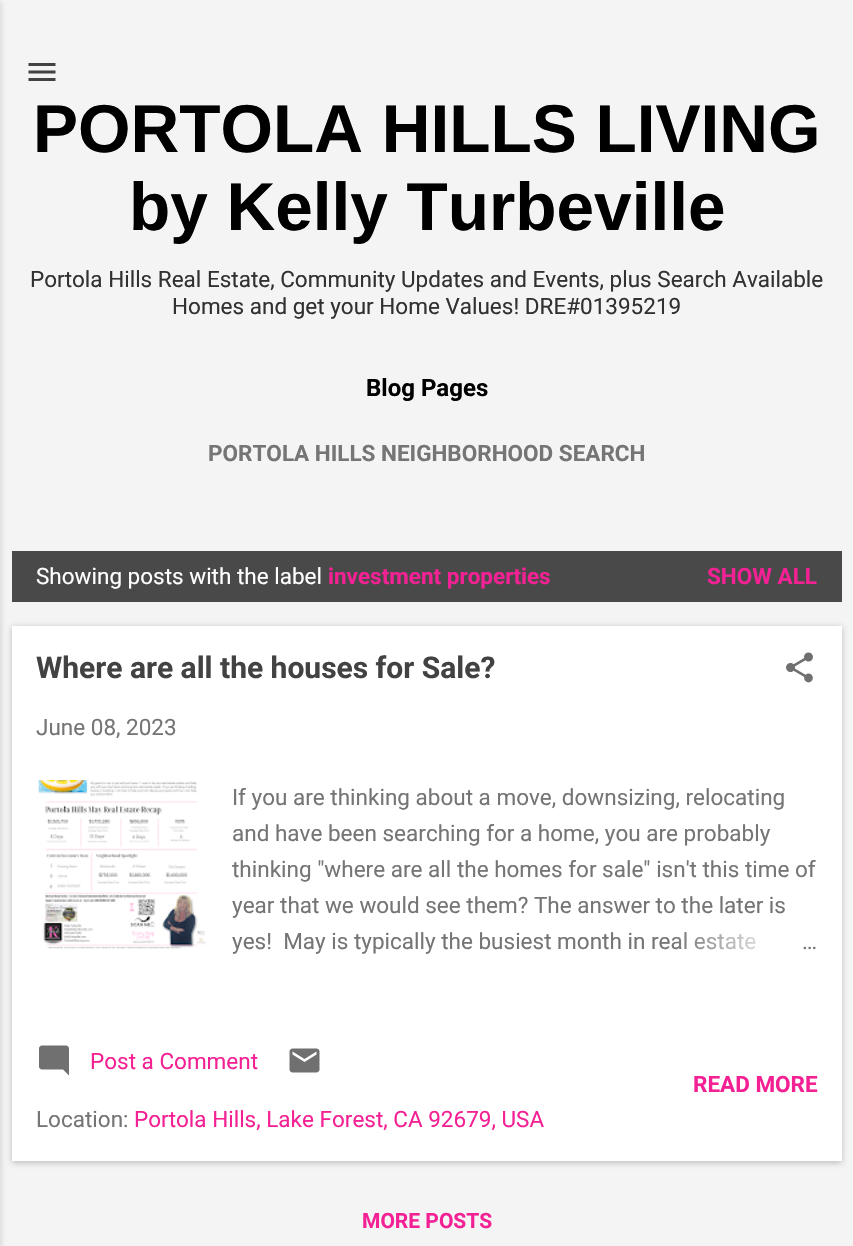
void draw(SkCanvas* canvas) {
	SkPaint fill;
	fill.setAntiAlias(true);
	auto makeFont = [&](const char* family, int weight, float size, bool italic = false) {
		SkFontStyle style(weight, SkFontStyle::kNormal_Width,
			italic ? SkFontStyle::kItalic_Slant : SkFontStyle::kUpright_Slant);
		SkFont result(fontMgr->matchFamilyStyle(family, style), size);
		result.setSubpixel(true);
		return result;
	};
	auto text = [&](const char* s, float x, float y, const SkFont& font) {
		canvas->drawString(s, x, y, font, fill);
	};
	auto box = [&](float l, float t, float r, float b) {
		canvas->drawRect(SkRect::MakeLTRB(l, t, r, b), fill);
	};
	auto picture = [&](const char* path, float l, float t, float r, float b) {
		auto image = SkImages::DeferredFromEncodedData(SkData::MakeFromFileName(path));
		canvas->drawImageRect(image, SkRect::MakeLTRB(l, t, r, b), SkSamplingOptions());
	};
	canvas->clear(0xFFF4F4F4);
	fill.setColor(0x1A000000);
	fill.setMaskFilter(SkMaskFilter::MakeBlur(kNormal_SkBlurStyle, 2));
	canvas->drawRect(SkRect::MakeLTRB(-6, 2, 2, 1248), fill);
	fill.setMaskFilter(nullptr);
	picture("image0.png", 28, 63, 56, 81);
	fill.setColor(0xFF494949);
	box(12, 551, 842, 602);
	fill.setColor(0x4D433C40);
	fill.setMaskFilter(SkMaskFilter::MakeBlur(kNormal_SkBlurStyle, 3));
	canvas->drawRect(SkRect::MakeLTRB(12, 627, 842, 1163), fill);
	fill.setMaskFilter(nullptr);
	fill.setColor(0xFFFFFFFF);
	box(12, 626, 842, 1161);
	picture("image1.png", 786, 652, 813, 683);
	picture("image2.png", 38, 780, 206, 949);
	picture("image3.png", 39, 1045, 69, 1076);
	picture("image4.png", 289, 1048, 320, 1073);
	auto font1 = makeFont("Liberation Sans", 700, 67.5f);
	fill.setColor(0xFF000000);
	text("PORTOLA HILLS LIVING", 33, 152, font1);
	text("by Kelly Turbeville", 129, 230, font1);
	auto font2 = makeFont("Roboto", 400, 22.5f);
	fill.setColor(0xFF313131);
	text("Portola Hills Real Estate, Community Updates and Events, plus Search Available", 30, 287, font2);
	text("Homes and get your Home Values! DRE#01395219", 172, 314, font2);
	auto font3 = makeFont("Roboto", 700, 24);
	fill.setColor(0xFF000000);
	text("Blog Pages", 366, 396, font3);
	auto font4 = makeFont("Roboto", 700, 22.5f);
	fill.setColor(0xFF757575);
	text("PORTOLA HILLS NEIGHBORHOOD SEARCH", 208, 461, font4);
	fill.setColor(0xFFFFFFFF);
	text("Showing posts with the label", 36, 584, font2);
	fill.setColor(0xFFF32194);
	text("investment properties", 328, 584, font4);
	text("SHOW ALL", 707, 584, font4);
	auto font5 = makeFont("Roboto", 700, 30);
	fill.setColor(0xFF424242);
	text("Where are all the houses for Sale?", 36, 678, font5);
	fill.setColor(0xFF757575);
	text("June 08, 2023", 36, 735, font2);
	text("If you are thinking about a move, downsizing, relocating", 232, 805, font2);
	text("and have been searching for a home, you are probably", 232, 841, font2);
	text("thinking \"where are all the homes for sale\" isn't this time of", 232, 877, font2);
	text("year that we would see them? The answer to the later is", 232, 913, font2);
	text("yes!  May is typically the busiest month in real estate", 232, 949, font2);
	{
		const SkColor colors[] = {0xFFFFFFFF, 0xFFFFFFFF, 0x00FFFFFF};
		const float stops[] = {0, 0.2f, 1};
		const SkPoint ends[] = {{818, 942}, {674, 942}};
		fill.setShader(SkGradientShader::MakeLinear(ends, colors, stops, 3, SkTileMode::kClamp));
		fill.setAlpha(255);
	}
	box(676, 932, 756, 950);
	fill.setShader(nullptr);
	fill.setColor(0xFF757575);
	text("…", 802, 949, font2);
	fill.setColor(0xFFF32194);
	text("Post a Comment", 90, 1069, font2);
	fill.setColor(0xFF757575);
	text("Location:", 36, 1127, font2);
	fill.setColor(0xFFF32194);
	text("Portola Hills, Lake Forest, CA 92679, USA", 134, 1127, font2);
	text("READ MORE", 693, 1092, font4);
	auto font6 = makeFont("Roboto", 700, 21);
	text("MORE POSTS", 362, 1228, font6);
}
